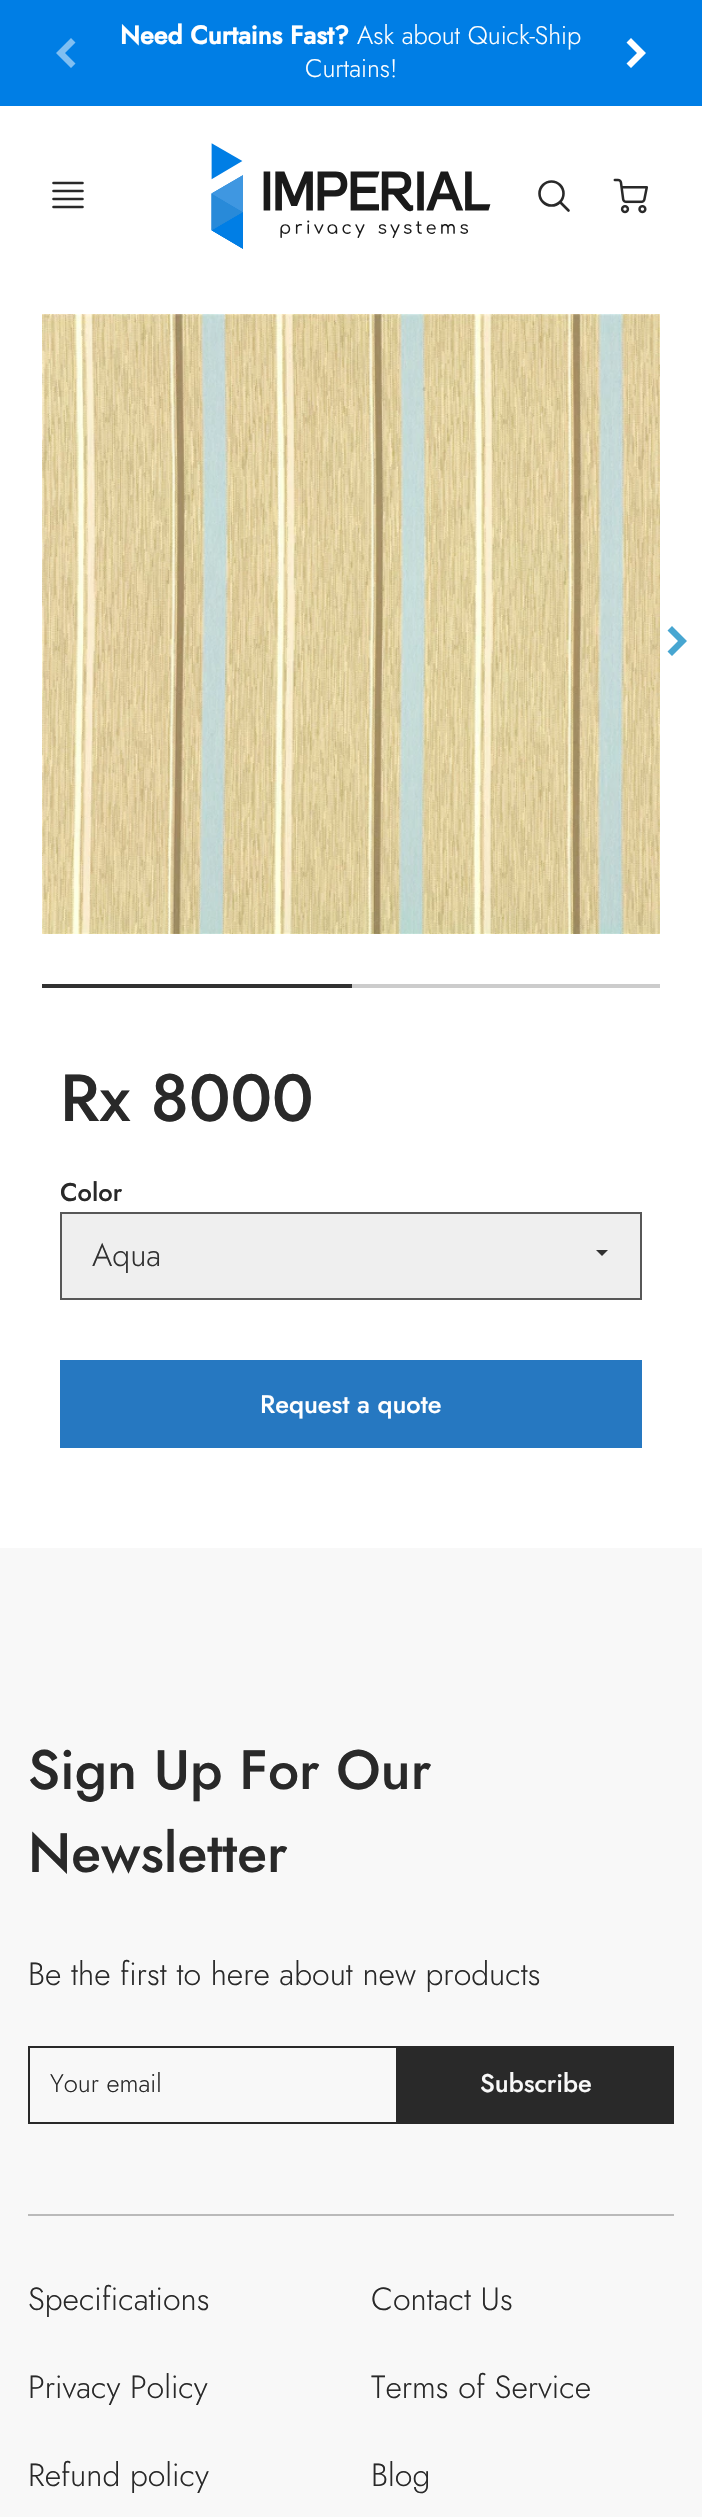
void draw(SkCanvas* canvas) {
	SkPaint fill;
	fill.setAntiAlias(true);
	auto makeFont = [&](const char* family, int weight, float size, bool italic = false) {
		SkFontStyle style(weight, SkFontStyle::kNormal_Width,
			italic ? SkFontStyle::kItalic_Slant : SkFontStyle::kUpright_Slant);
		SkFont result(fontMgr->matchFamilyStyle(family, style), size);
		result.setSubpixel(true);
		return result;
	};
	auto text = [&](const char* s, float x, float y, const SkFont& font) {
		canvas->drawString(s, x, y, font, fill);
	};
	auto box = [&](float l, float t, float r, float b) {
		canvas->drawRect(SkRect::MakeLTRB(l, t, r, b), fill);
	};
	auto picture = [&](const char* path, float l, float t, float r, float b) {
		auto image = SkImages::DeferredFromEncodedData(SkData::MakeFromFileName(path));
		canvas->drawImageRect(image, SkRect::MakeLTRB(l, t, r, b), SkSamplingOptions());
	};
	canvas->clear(0xFFF8F8F8);
	fill.setColor(0xFF007EE5);
	box(0, 0, 702, 106);
	fill.setColor(0xFF80BFF2);
	canvas->drawPath(SkPathBuilder().moveTo(56, 53).lineTo(71, 68).lineTo(75.5f, 63.5f).lineTo(65, 53).lineTo(75.5f, 42.5f).lineTo(71, 38).close().detach(), fill);
	fill.setColor(0xFFFFFFFF);
	canvas->drawPath(SkPathBuilder().moveTo(646, 53).lineTo(631, 38).lineTo(626.5f, 42.5f).lineTo(637, 53).lineTo(626.5f, 63.5f).lineTo(631, 68).close().detach(), fill);
	box(0, 106, 702, 1548);
	fill.setStyle(SkPaint::kStroke_Style);
	fill.setStrokeWidth(2.6f);
	fill.setStrokeCap(SkPaint::kRound_Cap);
	fill.setStrokeJoin(SkPaint::kRound_Join);
	fill.setColor(0xFF292929);
	canvas->drawPath(SkPathBuilder().moveTo(82.5f, 199).lineTo(53.5f, 199).moveTo(82.5f, 207).lineTo(53.5f, 207).moveTo(82.5f, 183).lineTo(53.5f, 183).moveTo(82.5f, 191).lineTo(53.5f, 191).detach(), fill);
	picture("image0.png", 211, 143, 491, 249);
	fill.setStrokeCap(SkPaint::kButt_Cap);
	fill.setStrokeJoin(SkPaint::kMiter_Join);
	canvas->drawCircle(551.5f, 193.5f, 12, fill);
	fill.setStrokeCap(SkPaint::kRound_Cap);
	fill.setStrokeJoin(SkPaint::kRound_Join);
	canvas->drawPath(SkPathBuilder().moveTo(568.5f, 210.5f).lineTo(560.5f, 202.5f).detach(), fill);
	picture("image1.png", 613, 178, 648, 214);
	picture("image2.png", 42, 314, 660, 934);
	fill.setStyle(SkPaint::kFill_Style);
	fill.setColor(0xFF47A6D1);
	canvas->drawPath(SkPathBuilder().moveTo(687, 641).lineTo(672, 626).lineTo(667.5f, 630.5f).lineTo(678, 641).lineTo(667.5f, 651.5f).lineTo(672, 656).close().detach(), fill);
	fill.setColor(0xFF313131);
	box(42, 984, 352, 988);
	fill.setColor(0xFFCCCCCC);
	box(352, 984, 660, 988);
	fill.setColor(0xFFEFEFEF);
	box(62, 1214, 640, 1298);
	fill.setColor(0xFF313131);
	canvas->drawPath(SkPathBuilder().moveTo(596, 1250).lineTo(608, 1250).lineTo(602, 1256).close().detach(), fill);
	fill.setStyle(SkPaint::kStroke_Style);
	fill.setStrokeWidth(2);
	fill.setStrokeCap(SkPaint::kButt_Cap);
	fill.setStrokeJoin(SkPaint::kMiter_Join);
	fill.setColor(0xFF575757);
	canvas->drawRect(SkRect::MakeLTRB(61, 1213, 641, 1299), fill);
	fill.setStyle(SkPaint::kFill_Style);
	fill.setColor(0xFF2678C1);
	box(60, 1360, 642, 1448);
	fill.setStyle(SkPaint::kStroke_Style);
	fill.setColor(0xFF292929);
	canvas->drawRect(SkRect::MakeLTRB(29, 2047, 397, 2123), fill);
	fill.setStyle(SkPaint::kFill_Style);
	box(398, 2046, 674, 2124);
	fill.setColor(0xFFBABABA);
	box(28, 2214, 674, 2216);
	auto font1 = makeFont("Jost", 700, 25.5f);
	fill.setColor(0xFFFFFFFF);
	text("Need Curtains Fast?", 120, 44, font1);
	auto font2 = makeFont("Jost", 300, 25.5f);
	text("Ask about Quick-Ship", 357, 44, font2);
	text("Curtains!", 305, 77, font2);
	auto font3 = makeFont("Jost", 500, 66.5f);
	fill.setColor(0xFF292929);
	text("Rx 8000", 60, 1121, font3);
	auto font4 = makeFont("Jost", 500, 25.5f);
	text("Color", 60, 1201, font4);
	auto font5 = makeFont("Jost", 300, 32);
	fill.setColor(0xFF313131);
	text("Aqua", 92, 1266, font5);
	fill.setColor(0xFFFFFFFF);
	text("Request a quote", 260, 1413, font4);
	auto font6 = makeFont("Jost", 500, 55.25f);
	fill.setColor(0xFF292929);
	text("Sign Up For Our", 28, 1789, font6);
	text("Newsletter", 28, 1872, font6);
	text("Be the first to here about new products", 28, 1985, font5);
	text("Your email", 50, 2092, font2);
	fill.setColor(0xFFF8F8F8);
	text("Subscribe", 480, 2092, font4);
	fill.setColor(0xFF292929);
	text("Specifications", 28, 2310, font5);
	text("Contact Us", 371, 2310, font5);
	text("Privacy Policy", 28, 2398, font5);
	text("Terms of Service", 371, 2398, font5);
	text("Refund policy", 28, 2486, font5);
	text("Blog", 371, 2486, font5);
}
